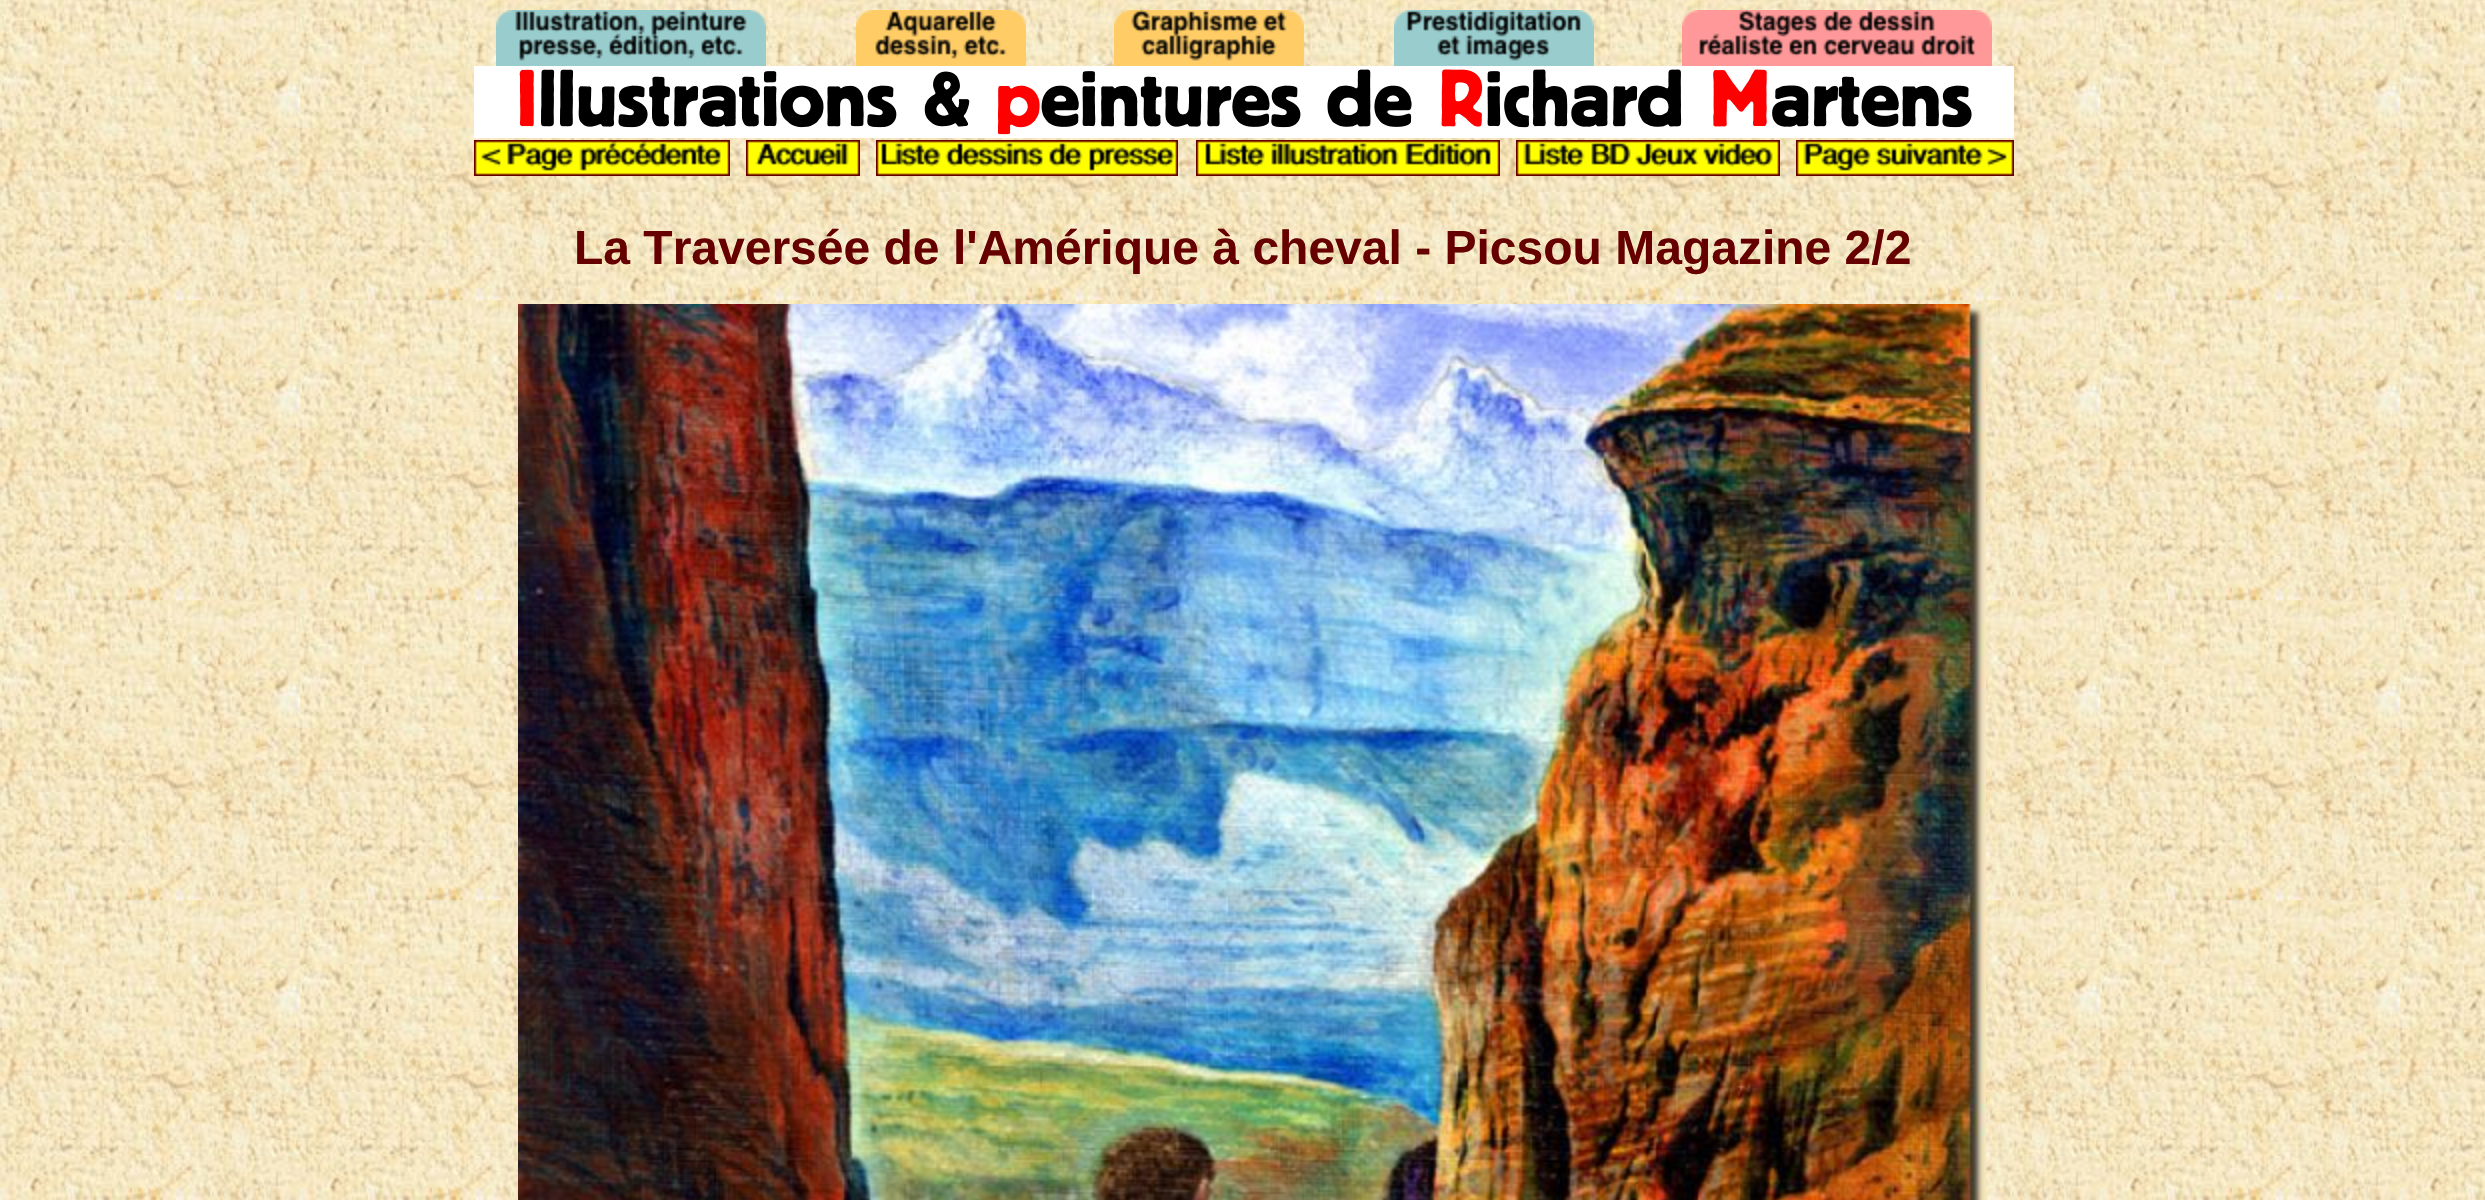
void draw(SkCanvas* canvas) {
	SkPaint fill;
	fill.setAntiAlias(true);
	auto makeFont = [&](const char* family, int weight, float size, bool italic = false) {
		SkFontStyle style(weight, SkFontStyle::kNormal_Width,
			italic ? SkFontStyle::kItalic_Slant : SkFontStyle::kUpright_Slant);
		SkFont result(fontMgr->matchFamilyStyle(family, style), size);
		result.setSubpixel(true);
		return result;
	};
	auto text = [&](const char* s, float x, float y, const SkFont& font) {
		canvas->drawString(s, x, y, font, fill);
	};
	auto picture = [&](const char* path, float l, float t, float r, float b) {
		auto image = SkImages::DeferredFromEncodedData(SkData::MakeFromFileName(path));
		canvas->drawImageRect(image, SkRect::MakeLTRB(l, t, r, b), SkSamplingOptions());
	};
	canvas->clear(0xFFFFFFFF);
	picture("image0.png", 0, 0, 2485, 1200);
	picture("image1.png", 496, 10, 766, 66);
	picture("image2.png", 856, 10, 1026, 66);
	picture("image3.png", 1114, 10, 1304, 66);
	picture("image4.png", 1394, 10, 1594, 66);
	picture("image5.png", 1682, 10, 1992, 66);
	picture("image6.png", 474, 66, 2014, 138);
	picture("image7.png", 474, 140, 730, 176);
	picture("image8.png", 746, 140, 860, 176);
	picture("image9.png", 876, 140, 1178, 176);
	picture("image10.png", 1196, 140, 1500, 176);
	picture("image11.png", 1516, 140, 1780, 176);
	picture("image12.png", 1796, 140, 2014, 176);
	picture("image13.png", 518, 304, 1986, 1200);
	auto font1 = makeFont("Liberation Sans", 700, 48);
	fill.setColor(0xFF660000);
	text("La Traversée de l'Amérique à cheval - Picsou Magazine 2/2", 574, 264, font1);
}
